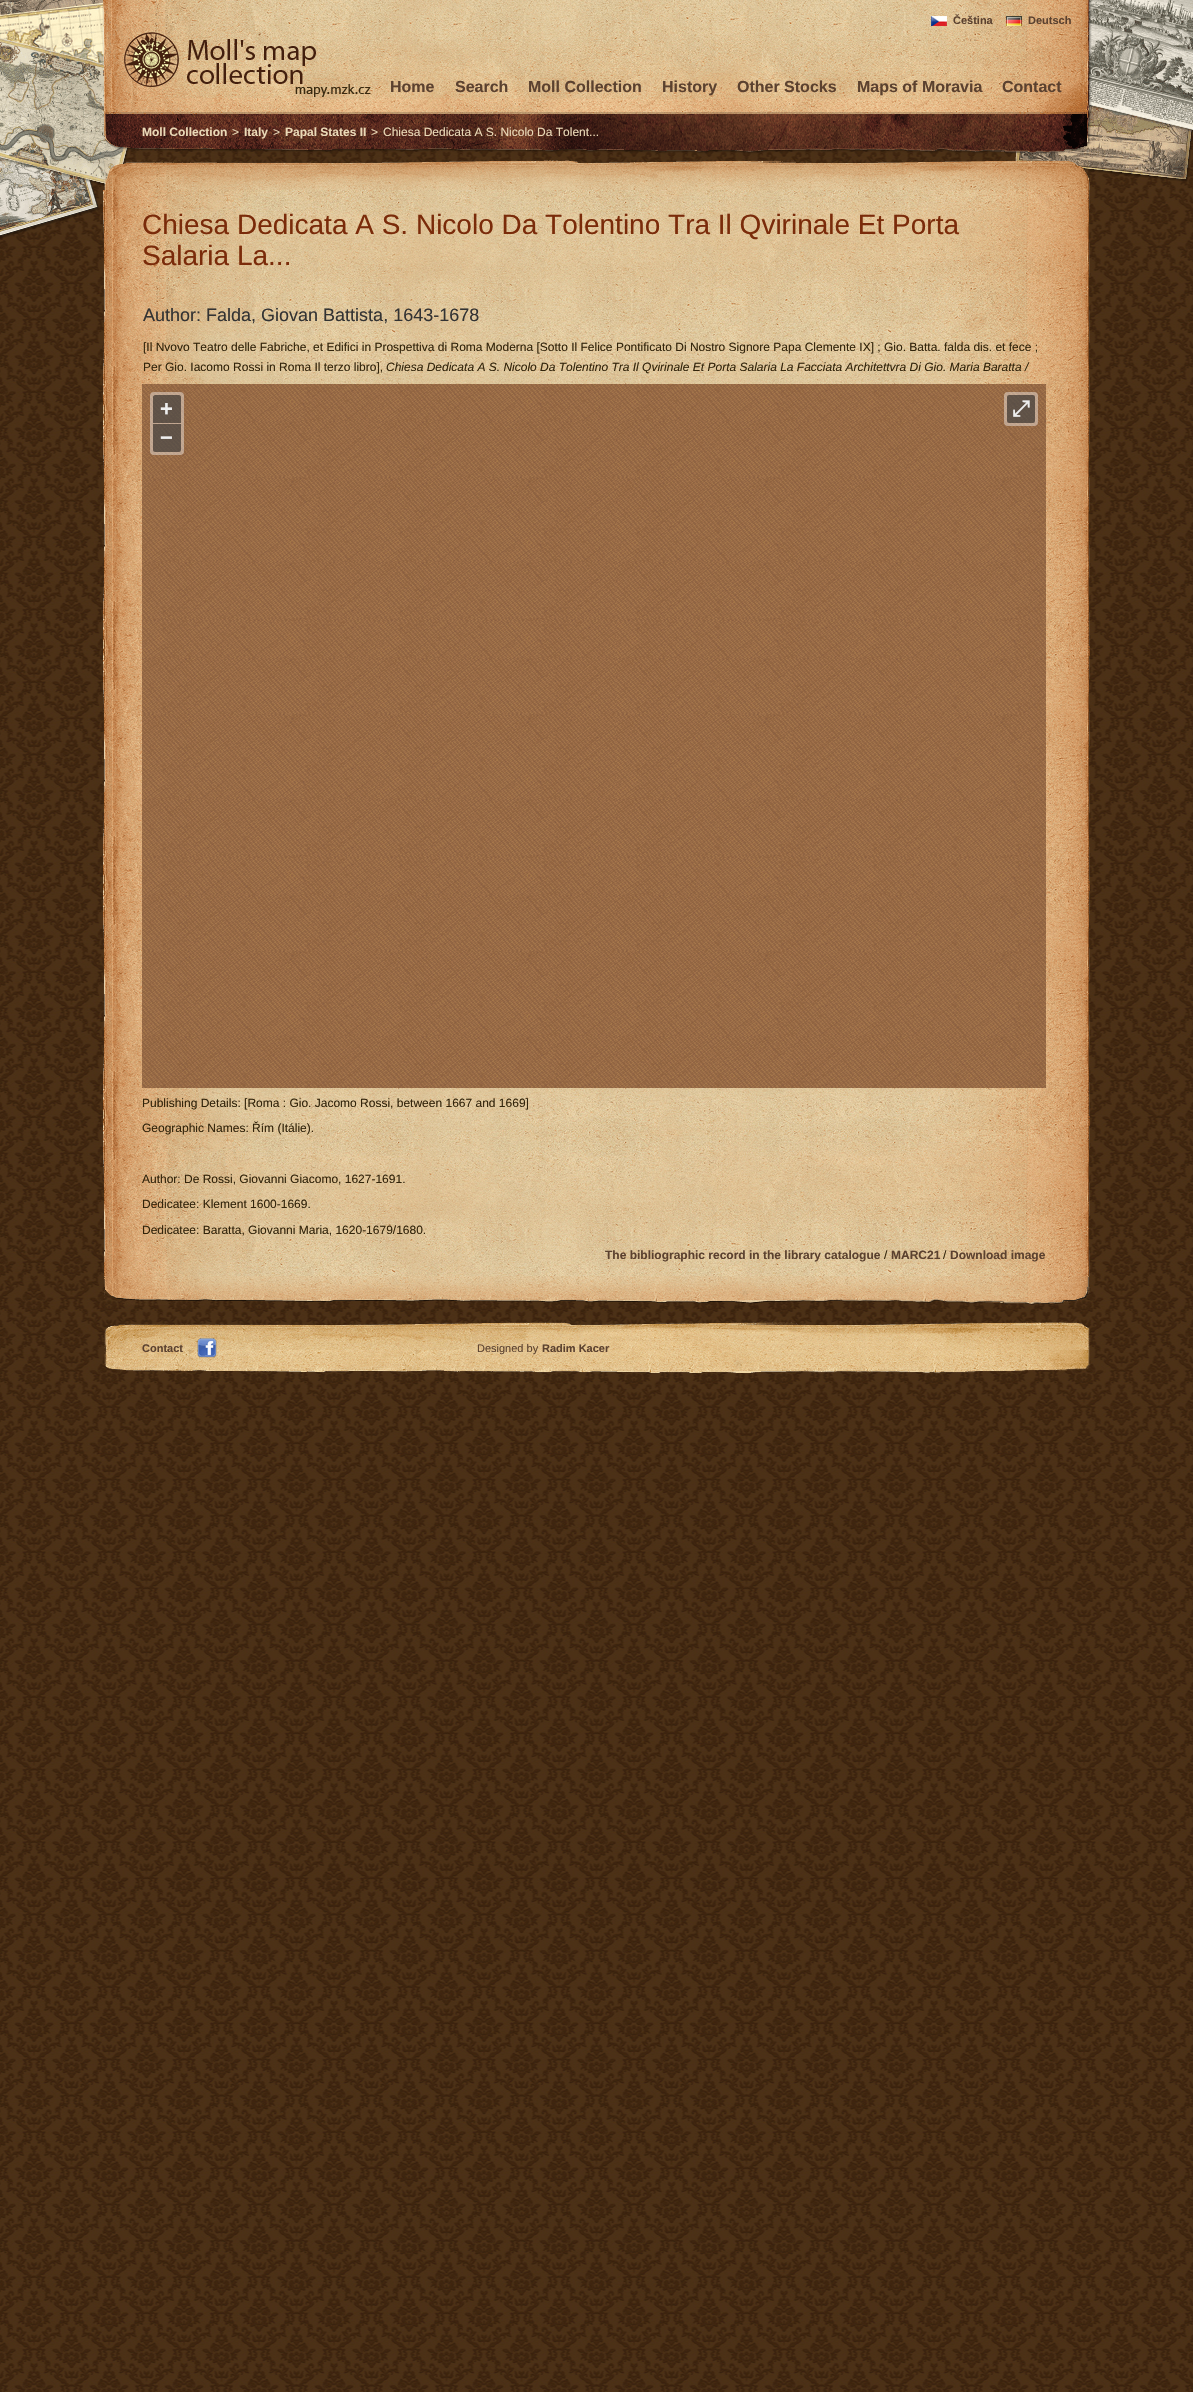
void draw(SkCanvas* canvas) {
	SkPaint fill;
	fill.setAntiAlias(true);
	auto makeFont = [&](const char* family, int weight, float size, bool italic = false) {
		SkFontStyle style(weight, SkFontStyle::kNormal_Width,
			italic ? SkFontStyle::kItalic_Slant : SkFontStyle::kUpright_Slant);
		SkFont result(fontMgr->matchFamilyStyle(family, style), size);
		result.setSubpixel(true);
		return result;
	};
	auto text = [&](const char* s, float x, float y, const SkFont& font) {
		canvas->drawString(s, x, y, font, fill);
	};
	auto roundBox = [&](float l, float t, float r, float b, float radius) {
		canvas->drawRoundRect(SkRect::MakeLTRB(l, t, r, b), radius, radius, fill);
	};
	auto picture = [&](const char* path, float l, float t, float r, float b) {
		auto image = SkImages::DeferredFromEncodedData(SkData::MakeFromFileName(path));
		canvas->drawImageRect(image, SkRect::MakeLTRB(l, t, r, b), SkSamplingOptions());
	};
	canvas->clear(0xFFFFFFFF);
	picture("image0.png", 0, 0, 1193, 2392);
	picture("image1.png", 0, 0, 1193, 239);
	picture("image2.png", 102, 0, 1092, 155);
	picture("image3.png", 931, 16, 947, 26);
	picture("image4.png", 1006, 16, 1022, 26);
	picture("image5.png", 124, 32, 371, 97);
	picture("image6.png", 104, 160, 1090, 190);
	picture("image7.png", 103, 190, 1090, 1276);
	picture("image8.png", 142, 384, 1046, 1088);
	fill.setColor(0x66FFFFFF);
	roundBox(150, 392, 184, 455, 4);
	fill.setColor(0x80000000);
	canvas->drawPath(SkPathBuilder().moveTo(155, 395).lineTo(179, 395).cubicTo(180, 395, 181, 396, 181, 397).lineTo(181, 423).lineTo(153, 423).lineTo(153, 397).cubicTo(153, 396, 154, 395, 155, 395).close().detach(), fill);
	canvas->drawPath(SkPathBuilder().moveTo(153, 424).lineTo(181, 424).lineTo(181, 450).cubicTo(181, 451, 180, 452, 179, 452).lineTo(155, 452).cubicTo(154, 452, 153, 451, 153, 450).close().detach(), fill);
	fill.setColor(0x66FFFFFF);
	roundBox(1004, 392, 1038, 426, 4);
	fill.setColor(0x80000000);
	roundBox(1007, 395, 1035, 423, 2);
	picture("image9.png", 104, 1276, 1090, 1305);
	picture("image10.png", 104, 1322, 1090, 1373);
	picture("image11.png", 197, 1338, 217, 1358);
	auto font1 = makeFont("Liberation Sans", 700, 11);
	fill.setColor(0xFF5B412F);
	text("Čeština", 953, 24, font1);
	text("Deutsch", 1028, 24, font1);
	auto font2 = makeFont("Liberation Sans", 700, 16);
	text("Home", 390, 92, font2);
	text("Search", 455, 92, font2);
	text("Moll Collection", 528, 92, font2);
	text("History", 662, 92, font2);
	text("Other Stocks", 737, 92, font2);
	text("Maps of Moravia", 857, 92, font2);
	text("Contact", 1002, 92, font2);
	auto font3 = makeFont("Liberation Sans", 700, 12);
	fill.setColor(0xFFEAD9B7);
	text("Moll Collection", 142, 136, font3);
	auto font4 = makeFont("Liberation Sans", 400, 12);
	text(">", 232, 136, font4);
	text("Italy", 244, 136, font3);
	text(">", 273, 136, font4);
	text("Papal States II", 285, 136, font3);
	text(">", 371, 136, font4);
	text("Chiesa Dedicata A S. Nicolo Da Tolent...", 383, 136, font4);
	auto font5 = makeFont("Liberation Sans", 400, 28);
	fill.setColor(0xFF7A2B0A);
	text("Chiesa Dedicata A S. Nicolo Da Tolentino Tra Il Qvirinale Et Porta", 142, 234, font5);
	text("Salaria La...", 142, 265, font5);
	auto font6 = makeFont("Liberation Sans", 400, 18);
	fill.setColor(0xFF333333);
	text("Author: Falda, Giovan Battista, 1643-1678", 143, 321, font6);
	fill.setColor(0xFF32240B);
	text("[Il Nvovo Teatro delle Fabriche, et Edifici in Prospettiva di Roma Moderna [Sotto Il Felice Pontificato Di Nostro Signore Papa Clemente IX] ; Gio. Batta. falda dis. et fece ;", 143, 351, font4);
	text("Per Gio. Iacomo Rossi in Roma Il terzo libro],", 143, 371, font4);
	auto font7 = makeFont("Liberation Sans", 400, 12, true);
	text("Chiesa Dedicata A S. Nicolo Da Tolentino Tra Il Qvirinale Et Porta Salaria La Facciata Architettvra Di Gio. Maria Baratta /", 386, 371, font7);
	auto font8 = makeFont("Liberation Sans", 700, 22);
	fill.setColor(0xFFEEEEEE);
	text("+", 160, 416, font8);
	text("−", 160, 445, font8);
	auto font9 = makeFont("FreeSerif", 700, 22);
	text("⤢", 1012, 416, font9);
	fill.setColor(0xFF32240B);
	text("Publishing Details: [Roma : Gio. Jacomo Rossi, between 1667 and 1669]", 142, 1107, font4);
	text("Geographic Names: Řím (Itálie).", 142, 1132, font4);
	text("Author: De Rossi, Giovanni Giacomo, 1627-1691.", 142, 1183, font4);
	text("Dedicatee: Klement 1600-1669.", 142, 1208, font4);
	text("Dedicatee: Baratta, Giovanni Maria, 1620-1679/1680.", 142, 1234, font4);
	fill.setColor(0xFF5B412F);
	text("The bibliographic record in the library catalogue", 605, 1259, font3);
	fill.setColor(0xFF32240B);
	text("/", 884, 1259, font4);
	fill.setColor(0xFF5B412F);
	text("MARC21", 891, 1259, font3);
	fill.setColor(0xFF32240B);
	text("/", 943, 1259, font4);
	fill.setColor(0xFF5B412F);
	text("Download image", 950, 1259, font3);
	text("Contact", 142, 1352, font1);
	auto font10 = makeFont("Liberation Sans", 400, 11);
	text("Designed by", 477, 1352, font10);
	text("Radim Kacer", 542, 1352, font1);
}
